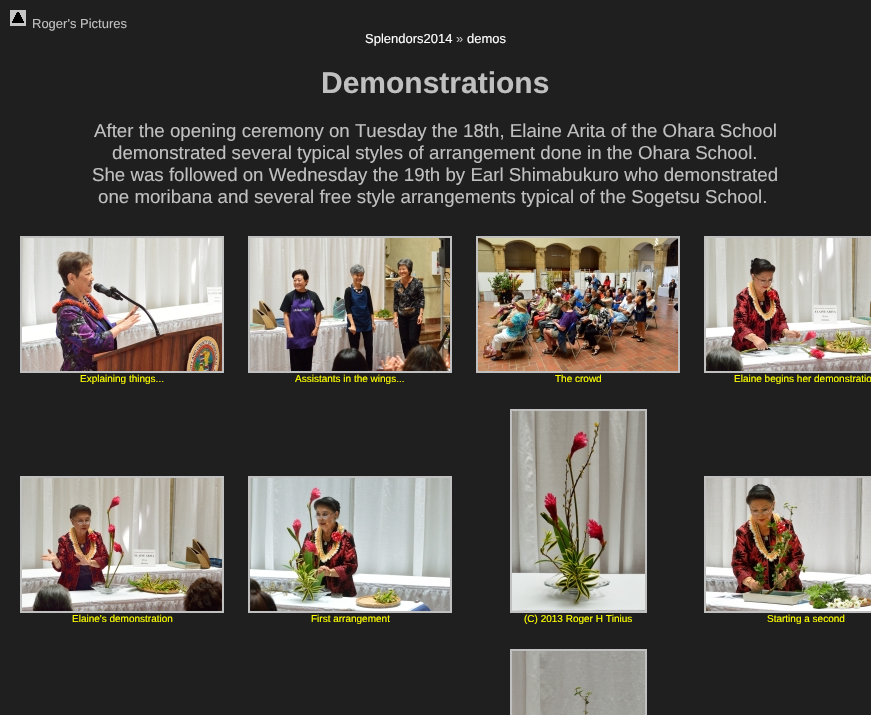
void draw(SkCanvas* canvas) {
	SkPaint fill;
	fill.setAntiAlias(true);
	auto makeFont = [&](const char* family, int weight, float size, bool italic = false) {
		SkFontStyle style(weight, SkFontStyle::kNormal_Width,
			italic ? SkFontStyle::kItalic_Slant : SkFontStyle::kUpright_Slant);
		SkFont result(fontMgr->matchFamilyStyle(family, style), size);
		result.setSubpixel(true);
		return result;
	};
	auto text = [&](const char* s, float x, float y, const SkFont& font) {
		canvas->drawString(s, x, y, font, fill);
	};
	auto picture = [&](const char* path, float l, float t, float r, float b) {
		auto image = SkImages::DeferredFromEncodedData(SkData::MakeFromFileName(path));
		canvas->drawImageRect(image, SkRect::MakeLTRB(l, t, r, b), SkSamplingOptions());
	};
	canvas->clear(0xFF1F1F1F);
	picture("image0.png", 10, 10, 26, 26);
	fill.setStyle(SkPaint::kStroke_Style);
	fill.setStrokeWidth(2);
	fill.setColor(0xFFC0C0C0);
	canvas->drawRect(SkRect::MakeLTRB(21, 237, 223, 372), fill);
	picture("image1.png", 22, 238, 222, 371);
	canvas->drawRect(SkRect::MakeLTRB(249, 237, 451, 372), fill);
	picture("image2.png", 250, 238, 450, 371);
	canvas->drawRect(SkRect::MakeLTRB(477, 237, 679, 372), fill);
	picture("image3.png", 478, 238, 678, 371);
	canvas->drawRect(SkRect::MakeLTRB(705, 237, 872, 372), fill);
	picture("image4.png", 706, 238, 871, 371);
	canvas->drawRect(SkRect::MakeLTRB(21, 477, 223, 612), fill);
	picture("image5.png", 22, 478, 222, 611);
	canvas->drawRect(SkRect::MakeLTRB(249, 477, 451, 612), fill);
	picture("image6.png", 250, 478, 450, 611);
	canvas->drawRect(SkRect::MakeLTRB(511, 410, 646, 612), fill);
	picture("image7.png", 512, 411, 645, 611);
	canvas->drawRect(SkRect::MakeLTRB(705, 477, 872, 612), fill);
	picture("image8.png", 706, 478, 871, 611);
	canvas->drawRect(SkRect::MakeLTRB(511, 650, 646, 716), fill);
	picture("image9.png", 512, 651, 645, 715);
	auto font1 = makeFont("Liberation Sans", 400, 13);
	fill.setStyle(SkPaint::kFill_Style);
	text("Roger's Pictures", 32, 28, font1);
	fill.setColor(0xFFFFFFFF);
	text("Splendors2014", 365, 43, font1);
	fill.setColor(0xFFC0C0C0);
	text("»", 456, 43, font1);
	fill.setColor(0xFFFFFFFF);
	text("demos", 467, 43, font1);
	auto font2 = makeFont("Liberation Sans", 700, 30);
	fill.setColor(0xFFC0C0C0);
	text("Demonstrations", 321, 93, font2);
	auto font3 = makeFont("Liberation Sans", 400, 18.7f);
	text("After the opening ceremony on Tuesday the 18th, Elaine Arita of the Ohara School", 94, 137, font3);
	text("demonstrated several typical styles of arrangement done in the Ohara School.", 112, 159, font3);
	text("She was followed on Wednesday the 19th by Earl Shimabukuro who demonstrated", 92, 181, font3);
	text("one moribana and several free style arrangements typical of the Sogetsu School.", 98, 203, font3);
	auto font4 = makeFont("Liberation Sans", 400, 10);
	fill.setColor(0xFFFFFF00);
	text("Explaining things...", 80, 382, font4);
	text("Assistants in the wings...", 295, 382, font4);
	text("The crowd", 555, 382, font4);
	text("Elaine begins her demonstratio", 734, 382, font4);
	text("Elaine's demonstration", 72, 622, font4);
	text("First arrangement", 311, 622, font4);
	text("(C) 2013 Roger H Tinius", 524, 622, font4);
	text("Starting a second", 767, 622, font4);
}
